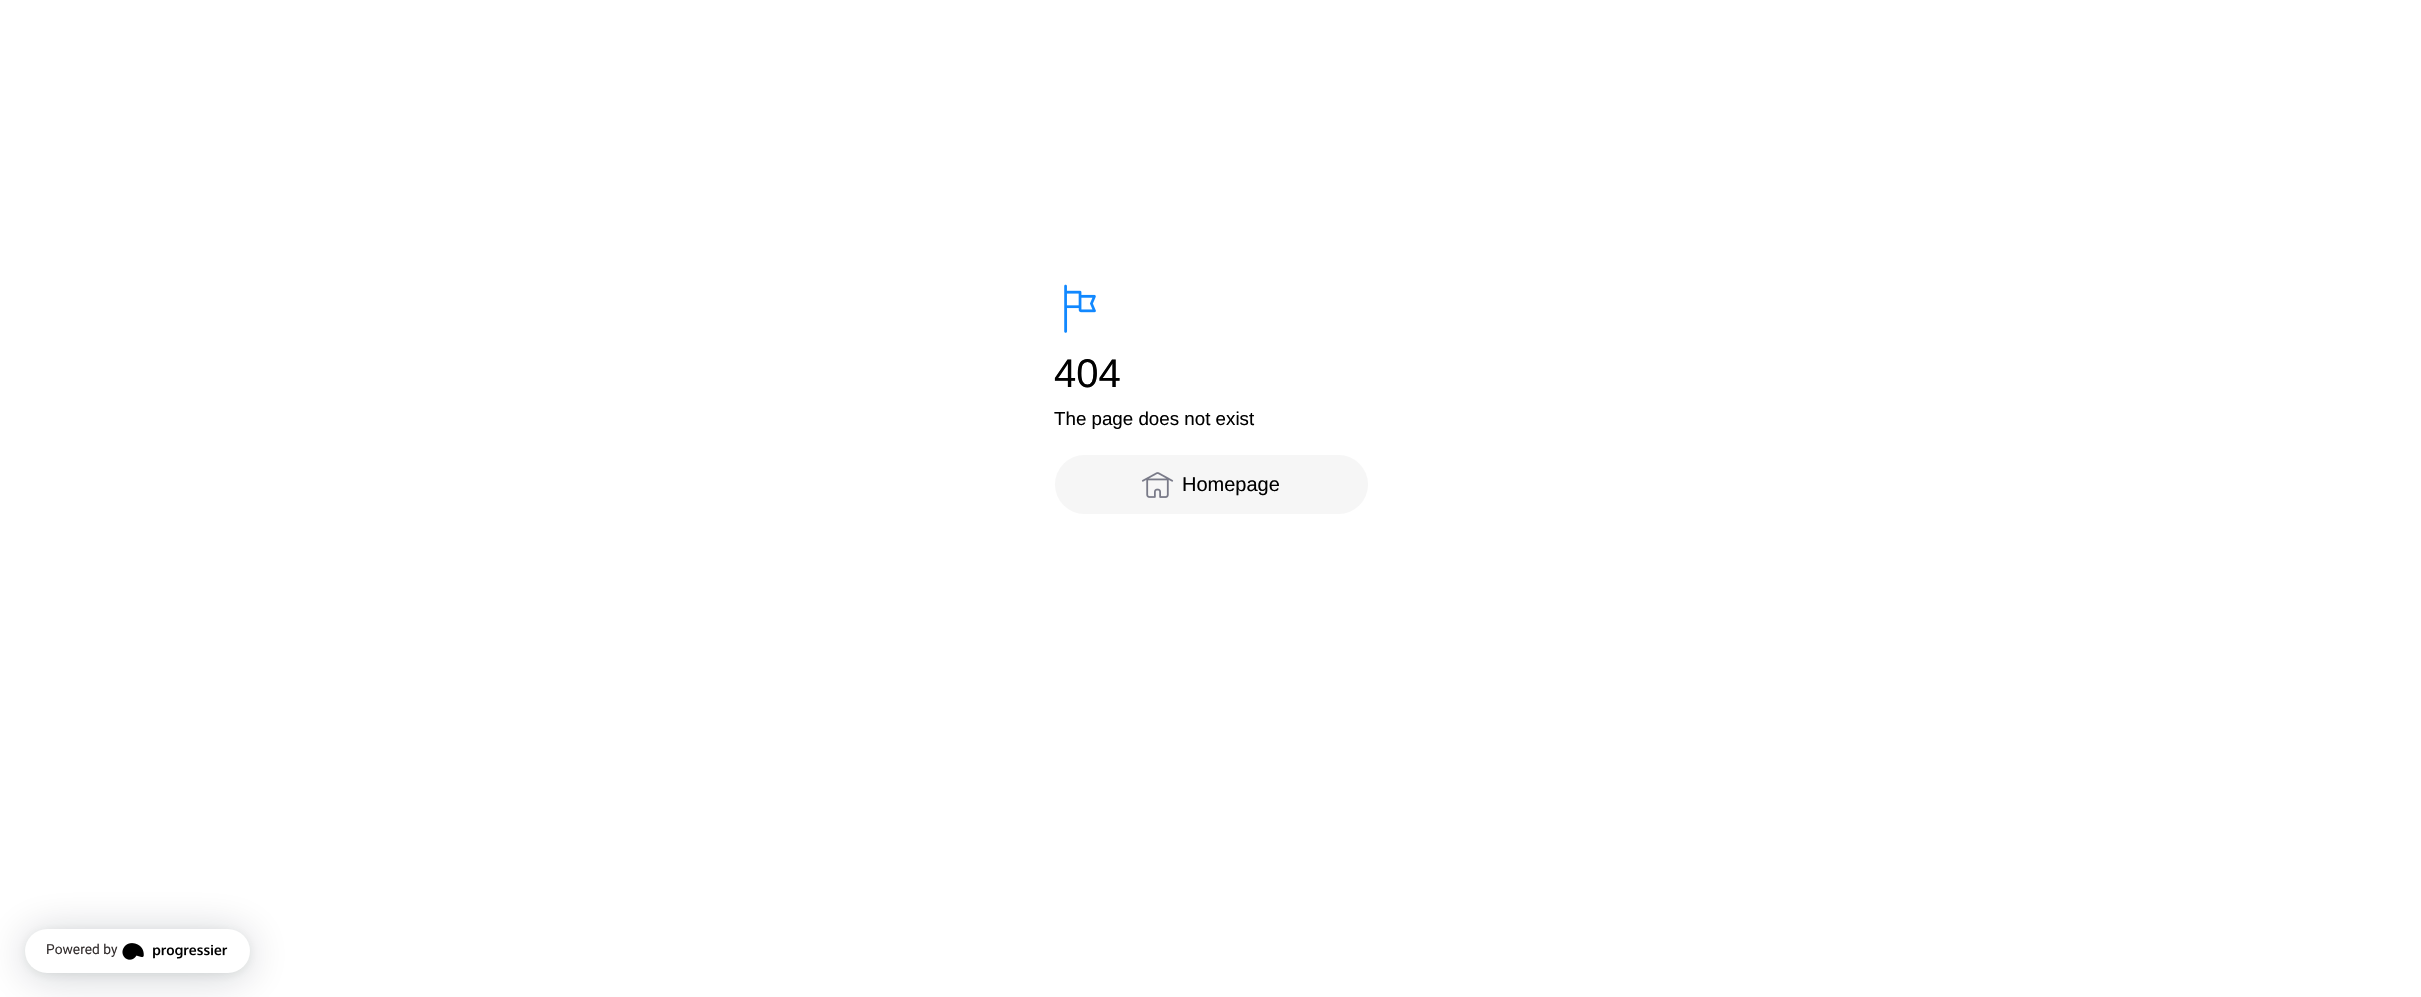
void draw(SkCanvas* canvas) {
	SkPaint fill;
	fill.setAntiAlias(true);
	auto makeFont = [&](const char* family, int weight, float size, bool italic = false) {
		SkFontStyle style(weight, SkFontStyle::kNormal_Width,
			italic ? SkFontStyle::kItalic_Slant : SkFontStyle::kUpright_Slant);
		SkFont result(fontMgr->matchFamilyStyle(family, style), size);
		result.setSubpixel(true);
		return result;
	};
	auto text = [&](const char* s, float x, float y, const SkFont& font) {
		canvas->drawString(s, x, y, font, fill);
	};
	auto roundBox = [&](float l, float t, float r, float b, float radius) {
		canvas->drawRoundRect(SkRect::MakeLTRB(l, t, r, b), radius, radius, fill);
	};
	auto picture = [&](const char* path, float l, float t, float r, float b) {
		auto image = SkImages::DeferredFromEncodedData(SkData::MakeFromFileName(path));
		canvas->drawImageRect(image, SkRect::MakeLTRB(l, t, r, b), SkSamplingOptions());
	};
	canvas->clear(0xFFFFFFFF);
	picture("image0.png", 1064, 284, 1096, 333);
	fill.setColor(0xFFF6F6F6);
	roundBox(1055, 455, 1368, 514, 29.5f);
	picture("image1.png", 1141, 472, 1174, 498);
	fill.setColor(0x33071529);
	fill.setMaskFilter(SkMaskFilter::MakeBlur(kNormal_SkBlurStyle, 22));
	canvas->drawRoundRect(SkRect::MakeLTRB(25, 933, 250, 976), 21.5f, 21.5f, fill);
	fill.setMaskFilter(nullptr);
	fill.setColor(0x140F290E);
	fill.setMaskFilter(SkMaskFilter::MakeBlur(kNormal_SkBlurStyle, 5));
	canvas->drawRoundRect(SkRect::MakeLTRB(25, 931, 250, 975), 22, 22, fill);
	fill.setMaskFilter(nullptr);
	fill.setColor(0xFFFFFFFF);
	roundBox(25, 929, 250, 973, 22);
	picture("image2.png", 122, 943, 228, 960);
	auto font1 = makeFont("Liberation Sans", 400, 40);
	fill.setColor(0xFF000000);
	text("404", 1054, 387, font1);
	auto font2 = makeFont("Liberation Sans", 400, 18.75f);
	text("The page does not exist", 1054, 425, font2);
	auto font3 = makeFont("Liberation Sans", 400, 20);
	text("Homepage", 1182, 491, font3);
	auto font4 = makeFont("Roboto", 400, 13.75f);
	fill.setColor(0xFF363131);
	text("Powered by", 46, 954, font4);
}
